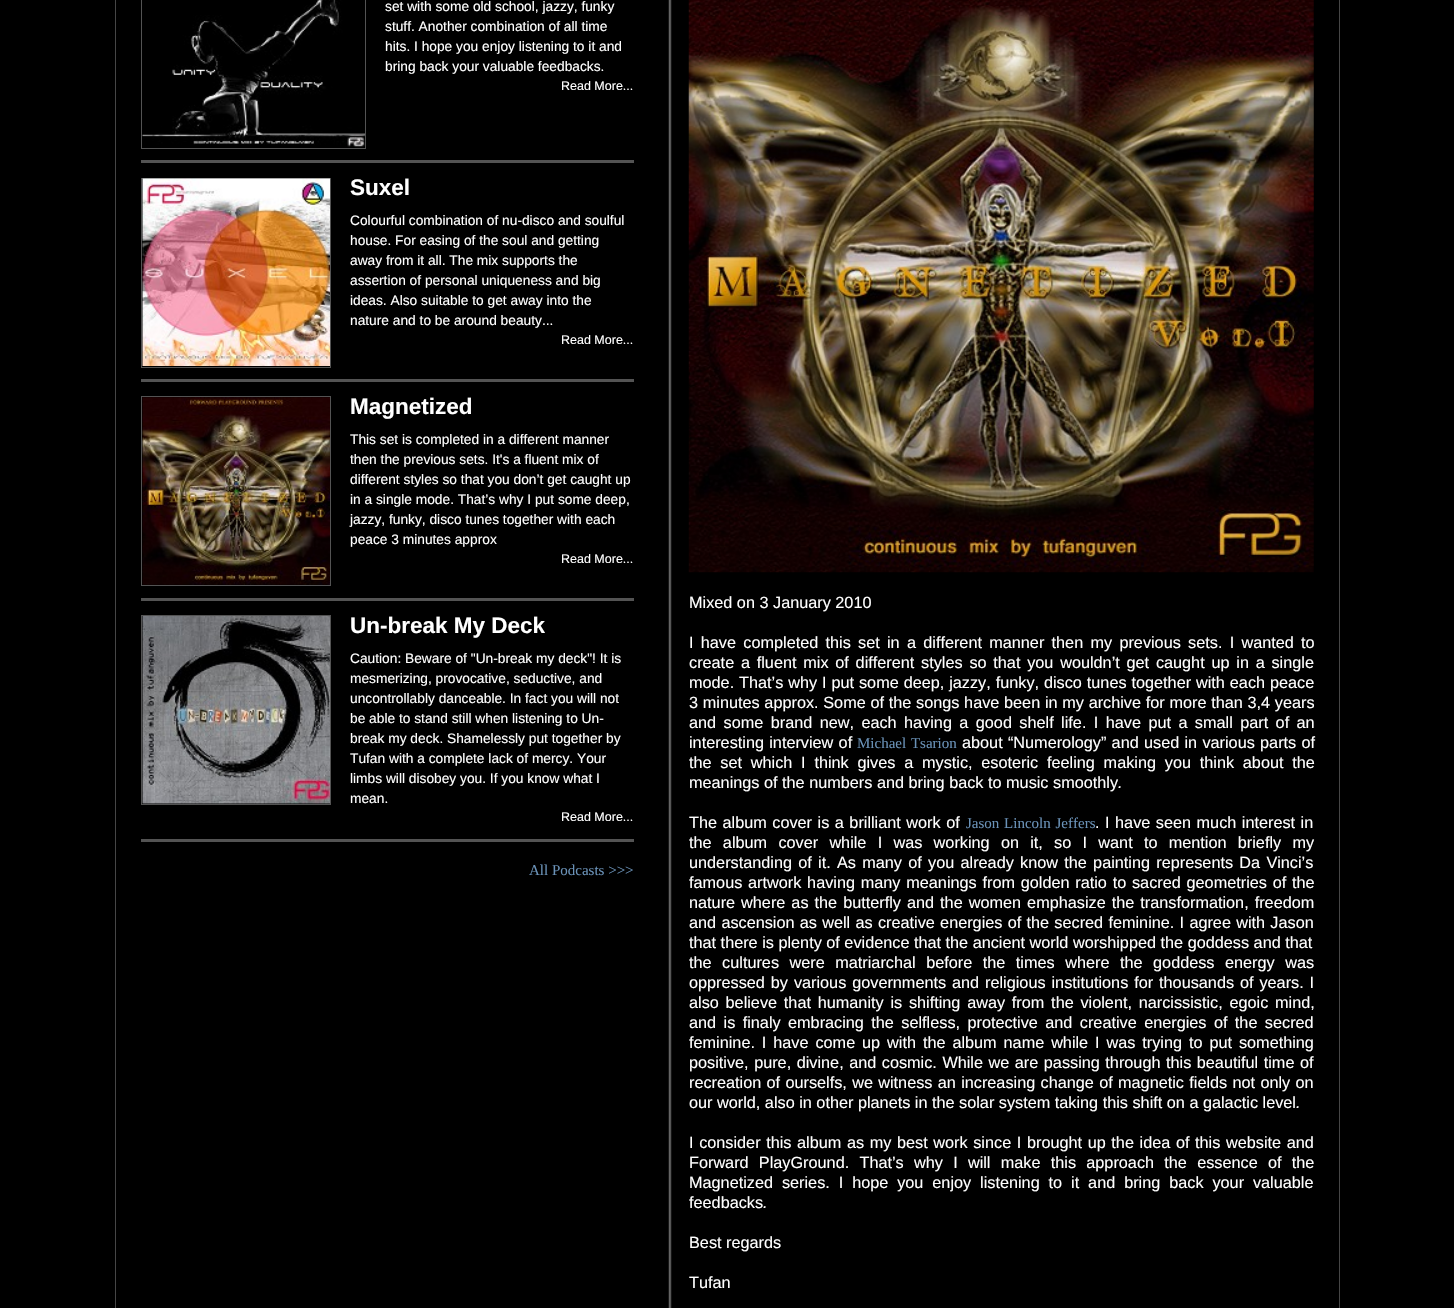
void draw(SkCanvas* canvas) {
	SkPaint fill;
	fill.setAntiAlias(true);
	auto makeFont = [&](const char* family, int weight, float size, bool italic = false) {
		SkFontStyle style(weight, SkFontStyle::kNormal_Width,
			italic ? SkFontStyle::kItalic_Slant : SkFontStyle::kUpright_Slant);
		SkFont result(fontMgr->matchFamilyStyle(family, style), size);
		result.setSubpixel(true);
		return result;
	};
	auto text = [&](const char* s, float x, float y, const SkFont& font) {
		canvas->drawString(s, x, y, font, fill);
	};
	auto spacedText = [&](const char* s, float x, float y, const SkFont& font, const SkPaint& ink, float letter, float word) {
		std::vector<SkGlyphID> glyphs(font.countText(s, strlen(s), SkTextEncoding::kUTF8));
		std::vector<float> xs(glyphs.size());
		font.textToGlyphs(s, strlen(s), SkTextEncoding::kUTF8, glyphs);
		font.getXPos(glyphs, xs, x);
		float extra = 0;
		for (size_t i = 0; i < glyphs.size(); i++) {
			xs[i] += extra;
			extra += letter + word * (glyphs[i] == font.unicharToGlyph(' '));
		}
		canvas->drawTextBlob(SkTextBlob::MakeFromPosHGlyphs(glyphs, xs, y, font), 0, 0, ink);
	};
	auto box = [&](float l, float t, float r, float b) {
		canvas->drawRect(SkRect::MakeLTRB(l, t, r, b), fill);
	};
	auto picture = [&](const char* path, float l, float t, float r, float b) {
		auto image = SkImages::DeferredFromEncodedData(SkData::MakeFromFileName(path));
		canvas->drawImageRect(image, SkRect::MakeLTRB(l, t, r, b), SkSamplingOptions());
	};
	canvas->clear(0xFF000000);
	fill.setStyle(SkPaint::kStroke_Style);
	fill.setStrokeWidth(1);
	fill.setColor(0xFF464646);
	canvas->drawRect(SkRect::MakeLTRB(115.5f, -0.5f, 1339.5f, 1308.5f), fill);
	fill.setColor(0xFF535353);
	canvas->drawRect(SkRect::MakeLTRB(141.5f, -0.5f, 365.5f, 148.5f), fill);
	picture("image0.png", 142, 0, 365, 148);
	fill.setStyle(SkPaint::kFill_Style);
	box(141, 160, 634, 163);
	fill.setStyle(SkPaint::kStroke_Style);
	canvas->drawRect(SkRect::MakeLTRB(141.5f, 178.5f, 330.5f, 367.5f), fill);
	picture("image1.png", 142, 178, 330, 366);
	fill.setStyle(SkPaint::kFill_Style);
	box(141, 379, 634, 382);
	fill.setStyle(SkPaint::kStroke_Style);
	canvas->drawRect(SkRect::MakeLTRB(141.5f, 396.5f, 330.5f, 585.5f), fill);
	picture("image2.png", 142, 397, 330, 585);
	fill.setStyle(SkPaint::kFill_Style);
	box(141, 598, 634, 601);
	fill.setStyle(SkPaint::kStroke_Style);
	canvas->drawRect(SkRect::MakeLTRB(141.5f, 615.5f, 330.5f, 804.5f), fill);
	picture("image3.png", 142, 616, 330, 804);
	fill.setStyle(SkPaint::kFill_Style);
	box(141, 839, 634, 842);
	picture("image4.png", 668, 0, 672, 1308);
	picture("image5.png", 688, 0, 1314, 573);
	auto font1 = makeFont("Liberation Sans", 400, 13.75f);
	fill.setColor(0xFFFFFFFF);
	text("set with some old school, jazzy, funky", 385, 11, font1);
	text("stuff. Another combination of all time", 385, 31, font1);
	text("hits. I hope you enjoy listening to it and", 385, 51, font1);
	text("bring back your valuable feedbacks.", 385, 71, font1);
	auto font2 = makeFont("Liberation Sans", 400, 12.5f);
	text("Read More...", 561, 90, font2);
	auto font3 = makeFont("Liberation Sans", 700, 22.5f);
	text("Suxel", 350, 195, font3);
	text("Colourful combination of nu-disco and soulful", 350, 225, font1);
	text("house. For easing of the soul and getting", 350, 245, font1);
	text("away from it all. The mix supports the", 350, 265, font1);
	text("assertion of personal uniqueness and big", 350, 285, font1);
	text("ideas. Also suitable to get away into the", 350, 305, font1);
	text("nature and to be around beauty...", 350, 325, font1);
	text("Read More...", 561, 344, font2);
	text("Magnetized", 350, 414, font3);
	text("This set is completed in a different manner", 350, 444, font1);
	text("then the previous sets. It's a fluent mix of", 350, 464, font1);
	text("different styles so that you don’t get caught up", 350, 484, font1);
	text("in a single mode. That’s why I put some deep,", 350, 504, font1);
	text("jazzy, funky, disco tunes together with each", 350, 524, font1);
	text("peace 3 minutes approx", 350, 544, font1);
	text("Read More...", 561, 563, font2);
	text("Un-break My Deck", 350, 633, font3);
	text("Caution: Beware of \"Un-break my deck\"! It is", 350, 663, font1);
	text("mesmerizing, provocative, seductive, and", 350, 683, font1);
	text("uncontrollably danceable. In fact you will not", 350, 703, font1);
	text("be able to stand still when listening to Un-", 350, 723, font1);
	text("break my deck. Shamelessly put together by", 350, 743, font1);
	text("Tufan with a complete lack of mercy. Your", 350, 763, font1);
	text("limbs will disobey you. If you know what I", 350, 783, font1);
	text("mean.", 350, 803, font1);
	text("Read More...", 561, 821, font2);
	auto font4 = makeFont("Liberation Serif", 400, 15);
	fill.setColor(0xFF6A92B8);
	text("All Podcasts >>>", 529, 875, font4);
	auto font5 = makeFont("Liberation Sans", 400, 16.25f);
	fill.setColor(0xFFFFFFFF);
	text("Mixed on 3 January 2010", 689, 608, font5);
	spacedText("I have completed this set in a different manner then my previous sets. I wanted to", 689, 648, font5, fill, 0, 2.75f);
	spacedText("create a fluent mix of different styles so that you wouldn’t get caught up in a single", 689, 668, font5, fill, 0, 2.25f);
	spacedText("mode. That’s why I put some deep, jazzy, funky, disco tunes together with each peace", 689, 688, font5, fill, 0, 0.4f);
	spacedText("3 minutes approx. Some of the songs have been in my archive for more than 3,4 years", 689, 708, font5, fill, 0, 0.2f);
	spacedText("and some brand new, each having a good shelf life. I have put a small part of an", 689, 728, font5, fill, 0, 2.9f);
	spacedText("interesting interview of", 689, 748, font5, fill, 0, 0.75f);
	fill.setColor(0xFF6A92B8);
	spacedText("Michael Tsarion", 857, 748, font4, fill, 0, 1);
	fill.setColor(0xFFFFFFFF);
	spacedText("about “Numerology” and used in various parts of", 962, 748, font5, fill, 0, 0.75f);
	spacedText("the set which I think gives a mystic, esoteric feeling making you think about the", 689, 768, font5, fill, 0, 4.25f);
	text("meanings of the numbers and bring back to music smoothly", 689, 788, font5);
	auto font6 = makeFont("Liberation Sans", 400, 16.25f, true);
	text(".", 1118, 788, font6);
	spacedText("The album cover is a brilliant work of", 689, 828, font5, fill, 0, 1);
	fill.setColor(0xFF6A92B8);
	spacedText("Jason Lincoln Jeffers", 966, 828, font4, fill, 0, 1);
	fill.setColor(0xFFFFFFFF);
	spacedText(". I have seen much interest in", 1095, 828, font5, fill, 0, 1);
	spacedText("the album cover while I was working on it, so I want to mention briefly my", 689, 848, font5, fill, 0, 6.75f);
	spacedText("understanding of it. As many of you already know the painting represents Da Vinci’s", 689, 868, font5, fill, 0, 1.75f);
	spacedText("famous artwork having many meanings from golden ratio to sacred geometries of the", 689, 888, font5, fill, 0, 1.25f);
	spacedText("nature where as the butterfly and the women emphasize the transformation, freedom", 689, 908, font5, fill, 0, 1.5f);
	spacedText("and ascension as well as creative energies of the secred feminine. I agree with Jason", 689, 928, font5, fill, 0, 0.75f);
	text("that there is plenty of evidence that the ancient world worshipped the goddess and that", 689, 948, font5);
	spacedText("the cultures were matriarchal before the times where the goddess energy was", 689, 968, font5, fill, 0, 6);
	spacedText("oppressed by various governments and religious institutions for thousands of years. I", 689, 988, font5, fill, 0, 1.4f);
	spacedText("also believe that humanity is shifting away from the violent, narcissistic, egoic mind,", 689, 1008, font5, fill, 0, 2.25f);
	spacedText("and is finaly embracing the selfless, protective and creative energies of the secred", 689, 1028, font5, fill, 0, 2.9f);
	spacedText("feminine. I have come up with the album name while I was trying to put something", 689, 1048, font5, fill, 0, 2.4f);
	spacedText("positive, pure, divine, and cosmic. While we are passing through this beautiful time of", 689, 1068, font5, fill, 0, 1);
	spacedText("recreation of ourselfs, we witness an increasing change of magnetic fields not only on", 689, 1088, font5, fill, 0, 0.8f);
	text("our world, also in other planets in the solar system taking this shift on a galactic level", 689, 1108, font5);
	text(".", 1296, 1108, font6);
	spacedText("I consider this album as my best work since I brought up the idea of this website and", 689, 1148, font5, fill, 0, 1.1f);
	spacedText("Forward PlayGround. That’s why I will make this approach the essence of the", 689, 1168, font5, fill, 0, 5.75f);
	spacedText("Magnetized series. I hope you enjoy listening to it and bring back your valuable", 689, 1188, font5, fill, 0, 4.4f);
	text("feedbacks", 689, 1208, font5);
	text(".", 763, 1208, font6);
	text("Best regards", 689, 1248, font5);
	text("Tufan", 689, 1288, font5);
}
